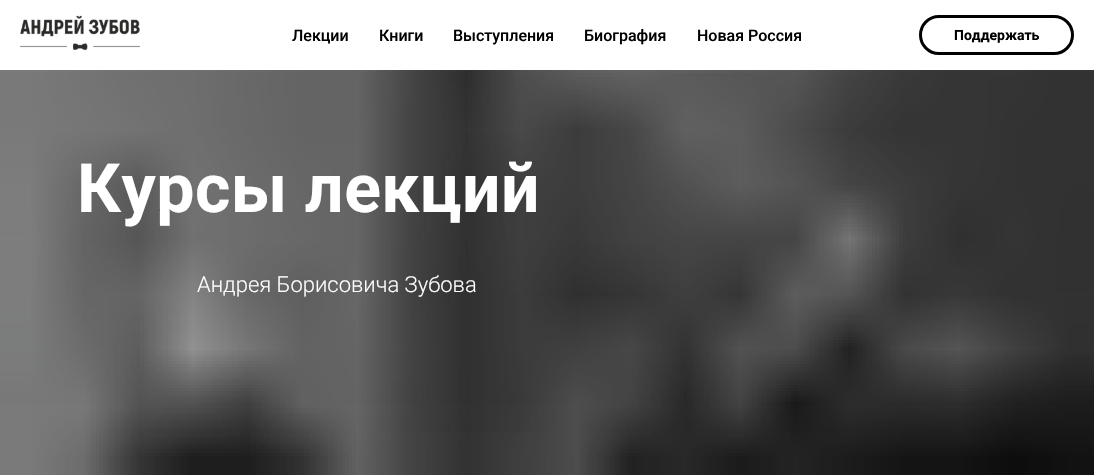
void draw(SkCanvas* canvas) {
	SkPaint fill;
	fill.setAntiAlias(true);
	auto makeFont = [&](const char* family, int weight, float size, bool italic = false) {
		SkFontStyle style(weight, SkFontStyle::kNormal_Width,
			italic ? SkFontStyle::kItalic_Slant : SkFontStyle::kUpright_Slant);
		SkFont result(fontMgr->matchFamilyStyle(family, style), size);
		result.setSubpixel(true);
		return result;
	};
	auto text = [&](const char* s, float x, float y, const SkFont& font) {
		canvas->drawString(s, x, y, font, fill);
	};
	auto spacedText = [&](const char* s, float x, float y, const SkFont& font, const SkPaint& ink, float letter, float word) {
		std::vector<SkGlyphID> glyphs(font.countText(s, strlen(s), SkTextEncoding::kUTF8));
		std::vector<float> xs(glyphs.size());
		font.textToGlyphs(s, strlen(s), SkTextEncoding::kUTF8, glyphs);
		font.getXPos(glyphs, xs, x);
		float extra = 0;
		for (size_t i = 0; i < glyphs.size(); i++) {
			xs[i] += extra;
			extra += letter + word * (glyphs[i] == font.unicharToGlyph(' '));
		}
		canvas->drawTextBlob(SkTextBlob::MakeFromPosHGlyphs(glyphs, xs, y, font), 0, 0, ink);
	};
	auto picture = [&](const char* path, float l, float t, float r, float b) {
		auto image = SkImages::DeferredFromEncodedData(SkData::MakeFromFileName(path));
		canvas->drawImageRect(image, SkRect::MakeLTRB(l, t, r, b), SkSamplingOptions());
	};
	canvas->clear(0xFFFFFFFF);
	picture("image0.png", 20, 15, 140, 50);
	fill.setStyle(SkPaint::kStroke_Style);
	fill.setStrokeWidth(3);
	fill.setColor(0xFF000000);
	canvas->drawRoundRect(SkRect::MakeLTRB(920.5f, 16.5f, 1072.5f, 53.5f), 18.5f, 18.5f, fill);
	picture("image1.png", 0, 70, 1094, 475);
	auto font1 = makeFont("Roboto", 500, 16);
	fill.setStyle(SkPaint::kFill_Style);
	text("Лекции", 292, 41, font1);
	text("Книги", 379, 41, font1);
	text("Выступления", 453, 41, font1);
	text("Биография", 584, 41, font1);
	text("Новая Россия", 697, 41, font1);
	auto font2 = makeFont("Roboto", 700, 14);
	text("Поддержать", 954, 40, font2);
	auto font3 = makeFont("Roboto", 700, 68);
	fill.setColor(0xFFFFFFFF);
	spacedText("Курсы лекций", 77, 212, font3, fill, 0.5f, 0);
	auto font4 = makeFont("Roboto", 300, 22);
	text("Андрея Борисовича Зубова", 197, 292, font4);
}
